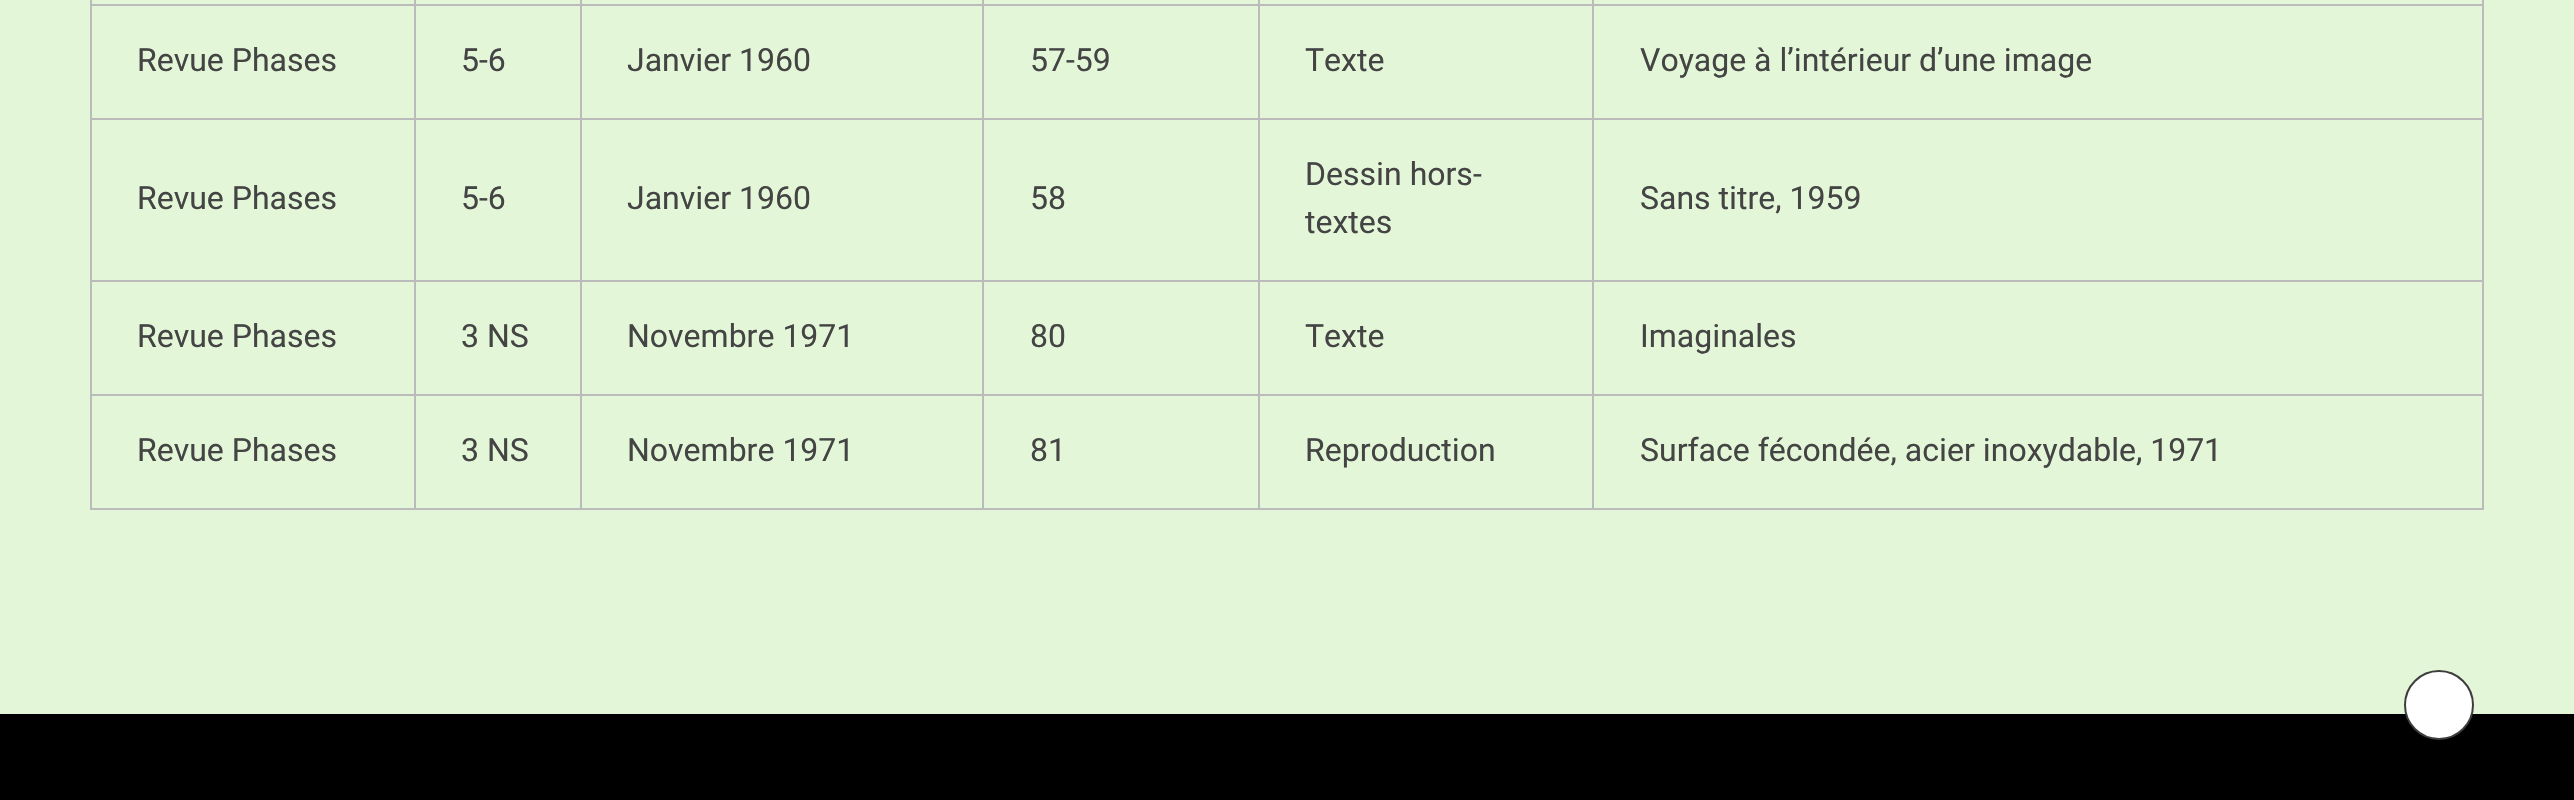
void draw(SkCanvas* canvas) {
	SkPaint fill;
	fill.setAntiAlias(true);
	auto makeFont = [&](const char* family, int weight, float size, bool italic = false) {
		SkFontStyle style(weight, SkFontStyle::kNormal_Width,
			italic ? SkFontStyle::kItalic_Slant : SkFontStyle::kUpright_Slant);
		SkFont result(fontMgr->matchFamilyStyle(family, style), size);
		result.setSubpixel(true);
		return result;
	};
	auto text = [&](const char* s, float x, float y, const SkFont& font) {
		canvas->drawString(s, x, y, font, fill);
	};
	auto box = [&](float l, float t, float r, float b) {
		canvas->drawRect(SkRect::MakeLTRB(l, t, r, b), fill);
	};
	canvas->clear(0xFFE3F6D7);
	fill.setColor(0xFFBBBBBB);
	box(1592, 4, 2484, 6);
	box(1592, 118, 2484, 120);
	box(1592, 280, 2484, 282);
	box(1592, 394, 2484, 396);
	box(2482, 394, 2484, 510);
	box(1592, 508, 2484, 510);
	box(1592, 394, 1594, 510);
	box(1258, 394, 1594, 396);
	box(1592, 280, 1594, 396);
	box(1258, 280, 1594, 282);
	box(1592, 118, 1594, 282);
	box(1258, 118, 1594, 120);
	box(1592, 4, 1594, 120);
	box(1258, 4, 1594, 6);
	box(1258, 508, 1594, 510);
	box(1258, 394, 1260, 510);
	box(982, 394, 1260, 396);
	box(1258, 280, 1260, 396);
	box(982, 280, 1260, 282);
	box(1258, 118, 1260, 282);
	box(982, 118, 1260, 120);
	box(1258, 4, 1260, 120);
	box(982, 4, 1260, 6);
	box(982, 508, 1260, 510);
	box(982, 394, 984, 510);
	box(580, 394, 984, 396);
	box(982, 280, 984, 396);
	box(580, 280, 984, 282);
	box(982, 118, 984, 282);
	box(580, 118, 984, 120);
	box(982, 4, 984, 120);
	box(580, 4, 984, 6);
	box(580, 508, 984, 510);
	box(580, 394, 582, 510);
	box(414, 394, 582, 396);
	box(580, 280, 582, 396);
	box(414, 280, 582, 282);
	box(580, 118, 582, 282);
	box(414, 118, 582, 120);
	box(580, 4, 582, 120);
	box(414, 4, 582, 6);
	box(414, 508, 582, 510);
	box(414, 394, 416, 510);
	box(90, 394, 416, 396);
	box(414, 280, 416, 396);
	box(90, 280, 416, 282);
	box(414, 118, 416, 282);
	box(90, 118, 416, 120);
	box(414, 4, 416, 120);
	box(90, 4, 416, 6);
	box(414, 0, 416, 6);
	box(580, 0, 582, 6);
	box(982, 0, 984, 6);
	box(1258, 0, 1260, 6);
	box(1592, 0, 1594, 6);
	box(90, 508, 416, 510);
	box(90, 394, 92, 510);
	box(90, 280, 92, 396);
	box(90, 118, 92, 282);
	box(90, 0, 92, 120);
	box(2482, 280, 2484, 396);
	box(2482, 118, 2484, 282);
	box(2482, 0, 2484, 120);
	fill.setColor(0xFF000000);
	box(0, 714, 2574, 800);
	fill.setColor(0xFFFFFFFF);
	canvas->drawCircle(2439, 705, 34, fill);
	fill.setStyle(SkPaint::kStroke_Style);
	fill.setStrokeWidth(2);
	fill.setColor(0xFF3D3D3D);
	canvas->drawCircle(2439, 705, 34, fill);
	auto font1 = makeFont("Heebo", 400, 32);
	fill.setStyle(SkPaint::kFill_Style);
	fill.setColor(0xFF444444);
	text("Revue Phases", 137, 71, font1);
	text("5-6", 461, 71, font1);
	text("Janvier 1960", 627, 71, font1);
	text("57-59", 1030, 71, font1);
	text("Texte", 1305, 71, font1);
	text("Voyage à l’intérieur d’une image", 1640, 71, font1);
	text("Revue Phases", 137, 209, font1);
	text("5-6", 461, 209, font1);
	text("Janvier 1960", 627, 209, font1);
	text("58", 1030, 209, font1);
	text("Dessin hors-", 1305, 185, font1);
	text("textes", 1305, 233, font1);
	text("Sans titre, 1959", 1640, 209, font1);
	text("Revue Phases", 137, 347, font1);
	text("3 NS", 461, 347, font1);
	text("Novembre 1971", 627, 347, font1);
	text("80", 1030, 347, font1);
	text("Texte", 1305, 347, font1);
	text("Imaginales", 1640, 347, font1);
	text("Revue Phases", 137, 461, font1);
	text("3 NS", 461, 461, font1);
	text("Novembre 1971", 627, 461, font1);
	text("81", 1030, 461, font1);
	text("Reproduction", 1305, 461, font1);
	text("Surface fécondée, acier inoxydable, 1971", 1640, 461, font1);
}
